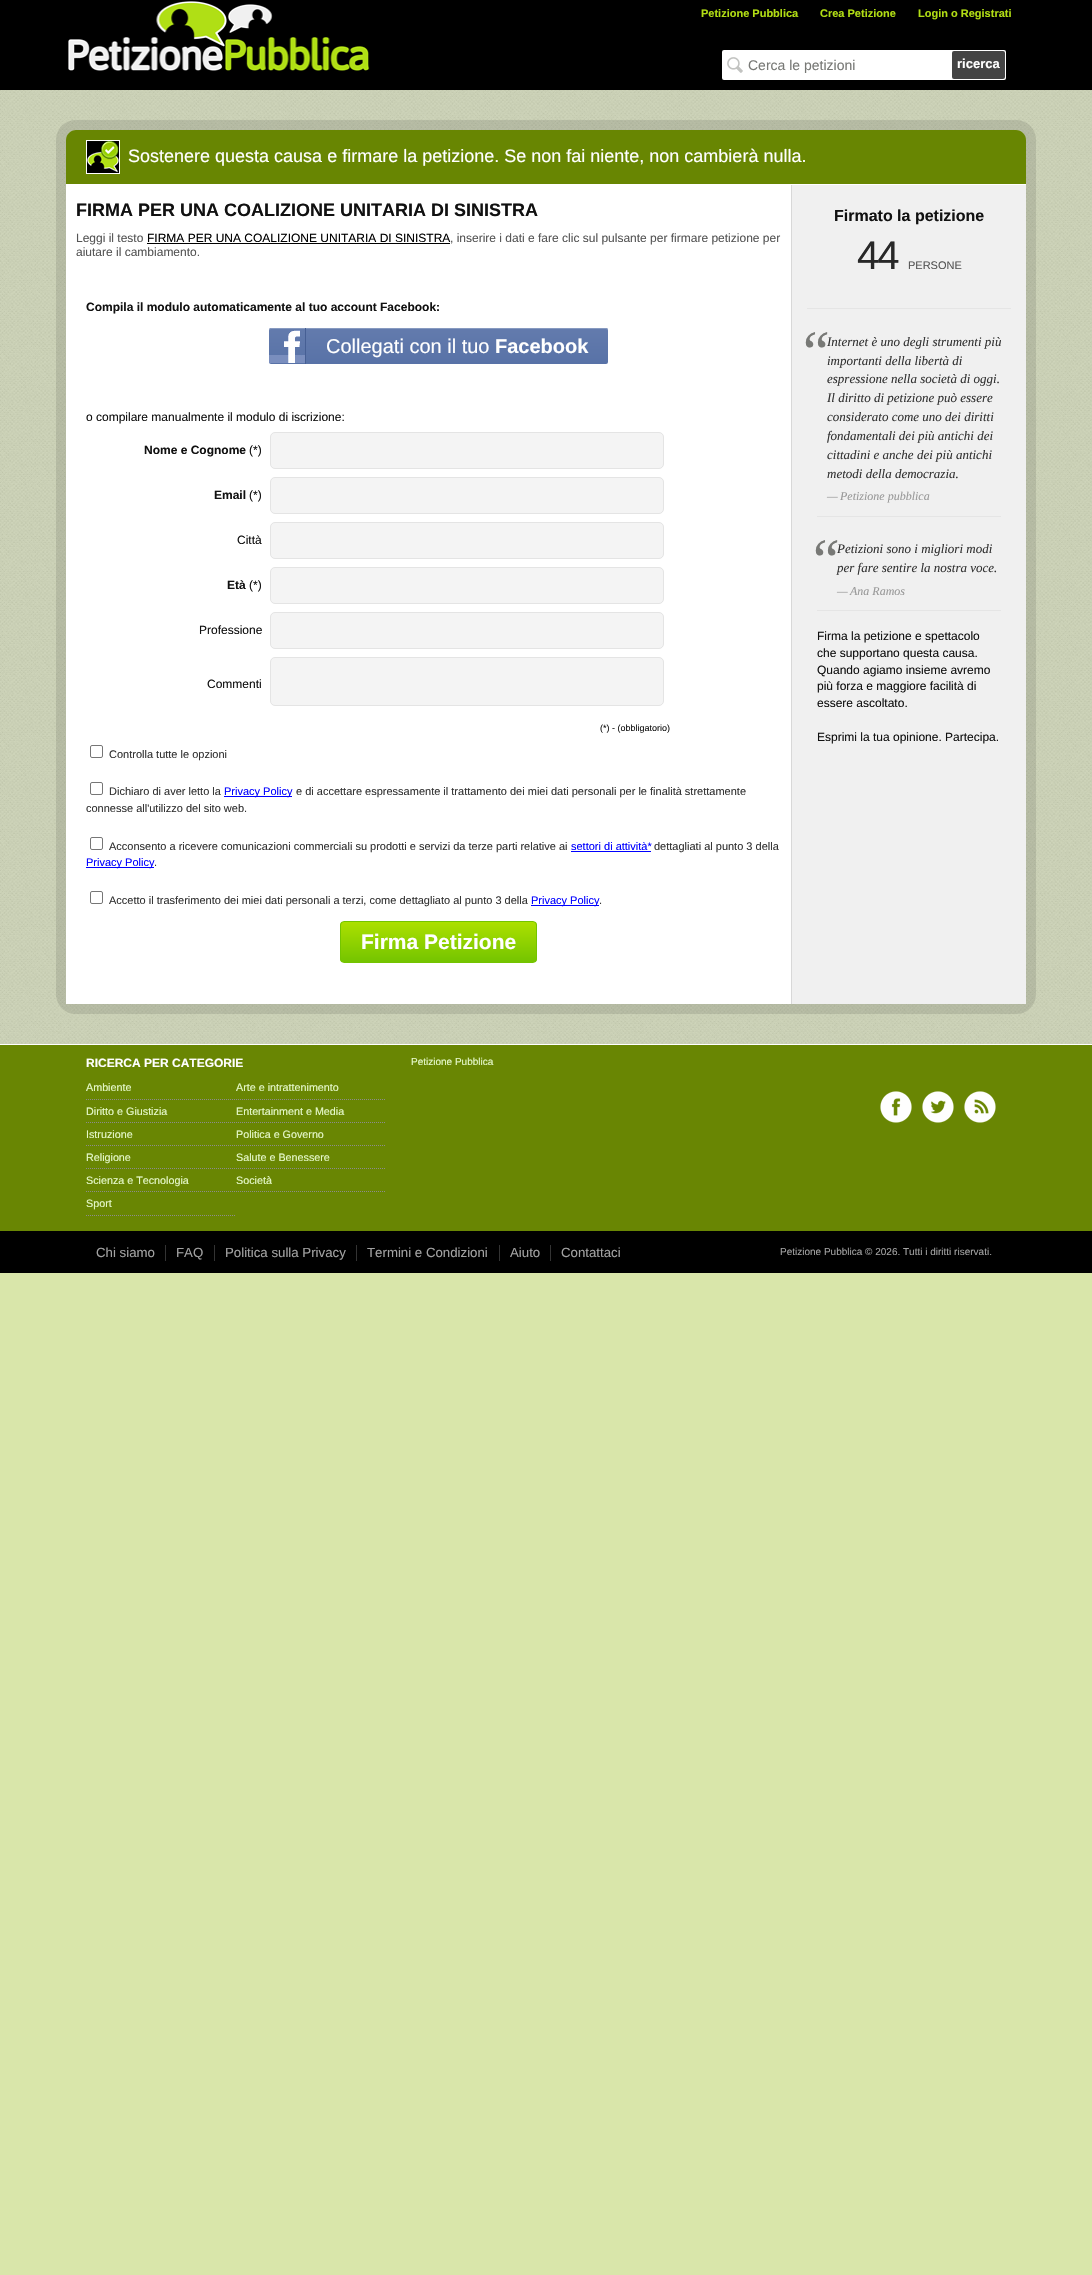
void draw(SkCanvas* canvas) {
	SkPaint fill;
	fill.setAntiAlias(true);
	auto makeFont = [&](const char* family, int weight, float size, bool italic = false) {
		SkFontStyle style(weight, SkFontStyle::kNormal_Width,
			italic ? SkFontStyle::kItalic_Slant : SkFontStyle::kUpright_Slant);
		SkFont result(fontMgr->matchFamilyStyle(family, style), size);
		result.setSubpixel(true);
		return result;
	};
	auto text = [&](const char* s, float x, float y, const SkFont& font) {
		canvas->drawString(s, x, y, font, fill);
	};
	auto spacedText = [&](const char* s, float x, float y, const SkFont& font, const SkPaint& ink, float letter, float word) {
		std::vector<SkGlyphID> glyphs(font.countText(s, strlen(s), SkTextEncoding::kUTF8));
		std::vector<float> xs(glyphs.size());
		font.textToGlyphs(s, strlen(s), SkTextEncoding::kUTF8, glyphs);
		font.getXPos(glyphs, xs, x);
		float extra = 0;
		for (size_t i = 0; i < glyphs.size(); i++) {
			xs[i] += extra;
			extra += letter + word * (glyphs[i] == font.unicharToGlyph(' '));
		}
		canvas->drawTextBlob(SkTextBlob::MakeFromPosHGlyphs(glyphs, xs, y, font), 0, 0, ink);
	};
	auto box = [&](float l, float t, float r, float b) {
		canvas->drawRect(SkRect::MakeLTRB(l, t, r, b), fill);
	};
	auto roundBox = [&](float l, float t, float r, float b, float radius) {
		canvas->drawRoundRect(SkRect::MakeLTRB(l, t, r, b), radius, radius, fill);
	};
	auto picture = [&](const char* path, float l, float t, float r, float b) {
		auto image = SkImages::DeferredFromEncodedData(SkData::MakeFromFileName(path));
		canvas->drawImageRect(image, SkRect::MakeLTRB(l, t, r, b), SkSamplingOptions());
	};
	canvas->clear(0xFFD9E6AA);
	fill.setColor(0xFF000000);
	box(0, 0, 1092, 90);
	picture("image0.png", 68, 1, 370, 71);
	fill.setColor(0xFFFFFFFF);
	roundBox(722, 50, 1006, 80, 2);
	picture("image1.png", 727, 57, 743, 73);
	fill.setColor(0xFF444444);
	roundBox(952, 51, 1005, 79, 2);
	picture("image2.png", 0, 90, 1092, 1044);
	fill.setStyle(SkPaint::kStroke_Style);
	fill.setStrokeWidth(10);
	fill.setColor(0x1A000000);
	canvas->drawRoundRect(SkRect::MakeLTRB(61, 125, 1031, 1009), 15, 15, fill);
	fill.setStyle(SkPaint::kFill_Style);
	fill.setColor(0xFF688602);
	canvas->drawPath(SkPathBuilder().moveTo(76, 130).lineTo(1016, 130).cubicTo(1021.5f, 130, 1026, 134.5f, 1026, 140).lineTo(1026, 185).lineTo(66, 185).lineTo(66, 140).cubicTo(66, 134.5f, 70.5f, 130, 76, 130).close().detach(), fill);
	fill.setColor(0xFFFFFFFF);
	box(66, 184, 1026, 185);
	fill.setStyle(SkPaint::kStroke_Style);
	fill.setStrokeWidth(1);
	canvas->drawRect(SkRect::MakeLTRB(86.5f, 140.5f, 119.5f, 173.5f), fill);
	picture("image3.png", 87, 141, 119, 173);
	fill.setStyle(SkPaint::kFill_Style);
	box(66, 185, 791, 1004);
	fill.setColor(0xFFD8D8D8);
	box(791, 185, 792, 1004);
	fill.setColor(0xFF000000);
	box(147, 243, 450, 244);
	{
		const SkColor colors[] = {0xFF637BAD, 0xFF5872A7};
		const float stops[] = {0, 1};
		const SkPoint ends[] = {{439, 328}, {439, 364}};
		fill.setShader(SkGradientShader::MakeLinear(ends, colors, stops, 2, SkTileMode::kClamp));
		fill.setAlpha(255);
	}
	roundBox(269, 328, 608, 364, 2);
	fill.setShader(nullptr);
	fill.setColor(0xFF879AC0);
	canvas->drawPath(SkPathBuilder().moveTo(271, 329).lineTo(606, 329).cubicTo(607, 329, 608, 330, 608, 331).cubicTo(608, 330, 608, 328, 606, 328).lineTo(271, 328).lineTo(269, 329).lineTo(269, 331).cubicTo(269, 330, 270, 329, 271, 329).close().detach(), fill);
	picture("image4.png", 269, 330, 305, 363);
	fill.setColor(0xFF465F94);
	box(305, 328, 306, 364);
	fill.setColor(0xFFF4F4F4);
	canvas->drawRoundRect(SkRect::MakeLTRB(270.5f, 432.5f, 663.5f, 468.5f), 4.5f, 4.5f, fill);
	fill.setStyle(SkPaint::kStroke_Style);
	fill.setColor(0xFFE4E4E4);
	canvas->drawRoundRect(SkRect::MakeLTRB(270.5f, 432.5f, 663.5f, 468.5f), 4.5f, 4.5f, fill);
	fill.setStyle(SkPaint::kFill_Style);
	fill.setColor(0xFFF4F4F4);
	canvas->drawRoundRect(SkRect::MakeLTRB(270.5f, 477.5f, 663.5f, 513.5f), 4.5f, 4.5f, fill);
	fill.setStyle(SkPaint::kStroke_Style);
	fill.setColor(0xFFE4E4E4);
	canvas->drawRoundRect(SkRect::MakeLTRB(270.5f, 477.5f, 663.5f, 513.5f), 4.5f, 4.5f, fill);
	fill.setStyle(SkPaint::kFill_Style);
	fill.setColor(0xFFF4F4F4);
	canvas->drawRoundRect(SkRect::MakeLTRB(270.5f, 522.5f, 663.5f, 558.5f), 4.5f, 4.5f, fill);
	fill.setStyle(SkPaint::kStroke_Style);
	fill.setColor(0xFFE4E4E4);
	canvas->drawRoundRect(SkRect::MakeLTRB(270.5f, 522.5f, 663.5f, 558.5f), 4.5f, 4.5f, fill);
	fill.setStyle(SkPaint::kFill_Style);
	fill.setColor(0xFFF4F4F4);
	canvas->drawRoundRect(SkRect::MakeLTRB(270.5f, 567.5f, 663.5f, 603.5f), 4.5f, 4.5f, fill);
	fill.setStyle(SkPaint::kStroke_Style);
	fill.setColor(0xFFE4E4E4);
	canvas->drawRoundRect(SkRect::MakeLTRB(270.5f, 567.5f, 663.5f, 603.5f), 4.5f, 4.5f, fill);
	fill.setStyle(SkPaint::kFill_Style);
	fill.setColor(0xFFF4F4F4);
	canvas->drawRoundRect(SkRect::MakeLTRB(270.5f, 612.5f, 663.5f, 648.5f), 4.5f, 4.5f, fill);
	fill.setStyle(SkPaint::kStroke_Style);
	fill.setColor(0xFFE4E4E4);
	canvas->drawRoundRect(SkRect::MakeLTRB(270.5f, 612.5f, 663.5f, 648.5f), 4.5f, 4.5f, fill);
	fill.setStyle(SkPaint::kFill_Style);
	fill.setColor(0xFFF4F4F4);
	canvas->drawRoundRect(SkRect::MakeLTRB(270.5f, 657.5f, 663.5f, 705.5f), 4.5f, 4.5f, fill);
	fill.setStyle(SkPaint::kStroke_Style);
	fill.setColor(0xFFE4E4E4);
	canvas->drawRoundRect(SkRect::MakeLTRB(270.5f, 657.5f, 663.5f, 705.5f), 4.5f, 4.5f, fill);
	fill.setColor(0xFF767676);
	canvas->drawRoundRect(SkRect::MakeLTRB(90.5f, 745.5f, 102.5f, 757.5f), 1.5f, 1.5f, fill);
	canvas->drawRoundRect(SkRect::MakeLTRB(90.5f, 782.5f, 102.5f, 794.5f), 1.5f, 1.5f, fill);
	fill.setStyle(SkPaint::kFill_Style);
	fill.setColor(0xFF0000FF);
	box(224, 796, 292, 797);
	fill.setStyle(SkPaint::kStroke_Style);
	fill.setColor(0xFF767676);
	canvas->drawRoundRect(SkRect::MakeLTRB(90.5f, 837.5f, 102.5f, 849.5f), 1.5f, 1.5f, fill);
	fill.setStyle(SkPaint::kFill_Style);
	fill.setColor(0xFF0000FF);
	box(571, 851, 651, 852);
	box(86, 867, 154, 868);
	fill.setStyle(SkPaint::kStroke_Style);
	fill.setColor(0xFF767676);
	canvas->drawRoundRect(SkRect::MakeLTRB(90.5f, 891.5f, 102.5f, 903.5f), 1.5f, 1.5f, fill);
	fill.setStyle(SkPaint::kFill_Style);
	fill.setColor(0xFF0000FF);
	box(531, 905, 599, 906);
	canvas->save();
	canvas->clipPath(SkPathBuilder().moveTo(344, 921).lineTo(533, 921).cubicTo(535, 921, 537, 923, 537, 925).lineTo(537, 959).cubicTo(537, 961, 535, 963, 533, 963).lineTo(344, 963).cubicTo(342, 963, 340, 961, 340, 959).lineTo(340, 925).cubicTo(340, 923, 342, 921, 344, 921).close().detach(), true);
	{
		const SkColor colors[] = {0xFFACE000, 0xFF74C400};
		const float stops[] = {0, 1};
		const SkPoint ends[] = {{341, 922}, {341, 962}};
		fill.setShader(SkGradientShader::MakeLinear(ends, colors, stops, 2, SkTileMode::kClamp));
		fill.setAlpha(255);
	}
	box(340, 922, 537, 962);
	canvas->restore();
	fill.setStyle(SkPaint::kStroke_Style);
	fill.setShader(nullptr);
	fill.setColor(0xFF74C400);
	canvas->drawRoundRect(SkRect::MakeLTRB(340.5f, 921.5f, 536.5f, 962.5f), 3.5f, 3.5f, fill);
	fill.setStyle(SkPaint::kFill_Style);
	fill.setColor(0xFFF0F0F0);
	box(792, 185, 1026, 1004);
	fill.setColor(0xFFE5E5E5);
	box(807, 308, 1011, 309);
	box(817, 516, 1001, 517);
	box(817, 610, 1001, 611);
	fill.setColor(0xFF698603);
	box(0, 1045, 1092, 1231);
	fill.setColor(0xFFFFFFFF);
	box(0, 1044, 1092, 1045);
	fill.setStyle(SkPaint::kStroke_Style);
	fill.setColor(0xFF8C8C8C);
	fill.setPathEffect(SkDashPathEffect::Make({{1, 1}}, 0));
	canvas->drawPath(SkPathBuilder().moveTo(86, 1099.5f).lineTo(236, 1099.5f).detach(), fill);
	fill.setPathEffect(nullptr);
	fill.setPathEffect(SkDashPathEffect::Make({{1, 1}}, 0));
	canvas->drawPath(SkPathBuilder().moveTo(236, 1099.5f).lineTo(386, 1099.5f).detach(), fill);
	fill.setPathEffect(nullptr);
	fill.setPathEffect(SkDashPathEffect::Make({{1, 1}}, 0));
	canvas->drawPath(SkPathBuilder().moveTo(86, 1122.5f).lineTo(236, 1122.5f).detach(), fill);
	fill.setPathEffect(nullptr);
	fill.setPathEffect(SkDashPathEffect::Make({{1, 1}}, 0));
	canvas->drawPath(SkPathBuilder().moveTo(236, 1122.5f).lineTo(386, 1122.5f).detach(), fill);
	fill.setPathEffect(nullptr);
	fill.setPathEffect(SkDashPathEffect::Make({{1, 1}}, 0));
	canvas->drawPath(SkPathBuilder().moveTo(86, 1145.5f).lineTo(236, 1145.5f).detach(), fill);
	fill.setPathEffect(nullptr);
	fill.setPathEffect(SkDashPathEffect::Make({{1, 1}}, 0));
	canvas->drawPath(SkPathBuilder().moveTo(236, 1145.5f).lineTo(386, 1145.5f).detach(), fill);
	fill.setPathEffect(nullptr);
	fill.setPathEffect(SkDashPathEffect::Make({{1, 1}}, 0));
	canvas->drawPath(SkPathBuilder().moveTo(86, 1168.5f).lineTo(236, 1168.5f).detach(), fill);
	fill.setPathEffect(nullptr);
	fill.setPathEffect(SkDashPathEffect::Make({{1, 1}}, 0));
	canvas->drawPath(SkPathBuilder().moveTo(236, 1168.5f).lineTo(386, 1168.5f).detach(), fill);
	fill.setPathEffect(nullptr);
	fill.setPathEffect(SkDashPathEffect::Make({{1, 1}}, 0));
	canvas->drawPath(SkPathBuilder().moveTo(86, 1191.5f).lineTo(236, 1191.5f).detach(), fill);
	fill.setPathEffect(nullptr);
	fill.setPathEffect(SkDashPathEffect::Make({{1, 1}}, 0));
	canvas->drawPath(SkPathBuilder().moveTo(236, 1191.5f).lineTo(386, 1191.5f).detach(), fill);
	fill.setPathEffect(nullptr);
	fill.setPathEffect(SkDashPathEffect::Make({{1, 1}}, 0));
	canvas->drawPath(SkPathBuilder().moveTo(86, 1215.5f).lineTo(236, 1215.5f).detach(), fill);
	fill.setPathEffect(nullptr);
	picture("image5.png", 880, 1091, 912, 1123);
	picture("image6.png", 922, 1091, 954, 1123);
	picture("image7.png", 964, 1091, 996, 1123);
	fill.setStyle(SkPaint::kFill_Style);
	fill.setColor(0xFF000000);
	box(0, 1231, 1092, 1273);
	fill.setColor(0xFF333333);
	box(165, 1245, 166, 1261);
	box(214, 1245, 215, 1261);
	box(356, 1245, 357, 1261);
	box(499, 1245, 500, 1261);
	box(550, 1245, 551, 1261);
	auto font1 = makeFont("Liberation Sans", 700, 11);
	fill.setColor(0xFFB1DD14);
	text("Petizione Pubblica", 701, 17, font1);
	text("Crea Petizione", 820, 17, font1);
	text("Login o Registrati", 918, 17, font1);
	auto font2 = makeFont("Liberation Sans", 400, 14);
	fill.setColor(0xFF787976);
	text("Cerca le petizioni", 748, 70, font2);
	auto font3 = makeFont("Liberation Sans", 700, 13);
	fill.setColor(0xFFFFFFFF);
	text("ricerca", 957, 68, font3);
	auto font4 = makeFont("Liberation Sans", 400, 18);
	text("Sostenere questa causa e firmare la petizione. Se non fai niente, non cambierà nulla.", 128, 162, font4);
	auto font5 = makeFont("Liberation Sans", 700, 18);
	fill.setColor(0xFF111111);
	text("FIRMA PER UNA COALIZIONE UNITARIA DI SINISTRA", 76, 216, font5);
	auto font6 = makeFont("Liberation Sans", 400, 12);
	fill.setColor(0xFF555555);
	text("Leggi il testo", 76, 242, font6);
	fill.setColor(0xFF000000);
	text("FIRMA PER UNA COALIZIONE UNITARIA DI SINISTRA", 147, 242, font6);
	fill.setColor(0xFF555555);
	text(", inserire i dati e fare clic sul pulsante per firmare petizione per", 450, 242, font6);
	text("aiutare il cambiamento.", 76, 256, font6);
	auto font7 = makeFont("Liberation Sans", 700, 12);
	fill.setColor(0xFF111111);
	text("Compila il modulo automaticamente al tuo account Facebook:", 86, 311, font7);
	auto font8 = makeFont("Liberation Sans", 400, 20);
	fill.setColor(0xFFFFFFFF);
	text("Collegati con il tuo", 326, 353, font8);
	auto font9 = makeFont("Liberation Sans", 700, 20);
	text("Facebook", 495, 353, font9);
	fill.setColor(0xFF111111);
	text("o compilare manualmente il modulo di iscrizione:", 86, 421, font6);
	text("Nome e Cognome", 144, 454, font7);
	text("(*)", 249, 454, font6);
	text("Email", 214, 499, font7);
	text("(*)", 249, 499, font6);
	text("Città", 237, 544, font6);
	text("Età", 227, 589, font7);
	text("(*)", 249, 589, font6);
	text("Professione", 199, 634, font6);
	text("Commenti", 207, 688, font6);
	auto font10 = makeFont("Liberation Sans", 400, 9);
	text("(*) - (obbligatorio)", 600, 731, font10);
	auto font11 = makeFont("Liberation Sans", 400, 11);
	fill.setColor(0xFF333333);
	text("Controlla tutte le opzioni", 109, 758, font11);
	text("Dichiaro di aver letto la", 109, 795, font11);
	fill.setColor(0xFF0000FF);
	text("Privacy Policy", 224, 795, font11);
	fill.setColor(0xFF333333);
	text("e di accettare espressamente il trattamento dei miei dati personali per le finalità strettamente", 296, 795, font11);
	text("connesse all'utilizzo del sito web.", 86, 812, font11);
	text("Acconsento a ricevere comunicazioni commerciali su prodotti e servizi da terze parti relative ai", 109, 850, font11);
	fill.setColor(0xFF0000FF);
	text("settori di attività*", 571, 850, font11);
	fill.setColor(0xFF333333);
	text("dettagliati al punto 3 della", 654, 850, font11);
	fill.setColor(0xFF0000FF);
	text("Privacy Policy", 86, 866, font11);
	fill.setColor(0xFF333333);
	text(".", 154, 866, font11);
	text("Accetto il trasferimento dei miei dati personali a terzi, come dettagliato al punto 3 della", 109, 904, font11);
	fill.setColor(0xFF0000FF);
	text("Privacy Policy", 531, 904, font11);
	fill.setColor(0xFF333333);
	text(".", 599, 904, font11);
	auto font12 = makeFont("Liberation Sans", 700, 21);
	fill.setColor(0xFFFFFFFF);
	text("Firma Petizione", 361, 949, font12);
	auto font13 = makeFont("Liberation Sans", 700, 16);
	fill.setColor(0xFF111111);
	text("Firmato la petizione", 834, 221, font13);
	auto font14 = makeFont("Liberation Sans", 400, 40);
	fill.setColor(0xFF282828);
	spacedText("44", 857, 269, font14, fill, -2, 0);
	fill.setColor(0xFF555555);
	text("PERSONE", 908, 269, font11);
	auto font15 = makeFont("Liberation Serif", 400, 13, true);
	fill.setColor(0xFF333333);
	text("Internet è uno degli strumenti più", 827, 346, font15);
	auto font16 = makeFont("Liberation Serif", 400, 60, true);
	fill.setColor(0xFF787976);
	text("“", 797, 372, font16);
	fill.setColor(0xFF333333);
	text("importanti della libertà di", 827, 365, font15);
	text("espressione nella società di oggi.", 827, 383, font15);
	text("Il diritto di petizione può essere", 827, 402, font15);
	text("considerato come uno dei diritti", 827, 421, font15);
	text("fondamentali dei più antichi dei", 827, 440, font15);
	text("cittadini e anche dei più antichi", 827, 459, font15);
	text("metodi della democrazia.", 827, 478, font15);
	auto font17 = makeFont("Liberation Serif", 400, 12, true);
	fill.setColor(0xFF999999);
	text("—", 827, 500, font17);
	text("Petizione pubblica", 840, 500, font17);
	fill.setColor(0xFF333333);
	text("Petizioni sono i migliori modi", 837, 553, font15);
	fill.setColor(0xFF787976);
	text("“", 807, 580, font16);
	fill.setColor(0xFF333333);
	text("per fare sentire la nostra voce.", 837, 572, font15);
	fill.setColor(0xFF999999);
	text("—", 837, 595, font17);
	text("Ana Ramos", 850, 595, font17);
	fill.setColor(0xFF111111);
	text("Firma la petizione e spettacolo", 817, 640, font6);
	text("che supportano questa causa.", 817, 657, font6);
	text("Quando agiamo insieme avremo", 817, 674, font6);
	text("più forza e maggiore facilità di", 817, 690, font6);
	text("essere ascoltato.", 817, 707, font6);
	text("Esprimi la tua opinione. Partecipa.", 817, 741, font6);
	fill.setColor(0xFFFFFFFF);
	text("RICERCA PER CATEGORIE", 86, 1067, font7);
	auto font18 = makeFont("Liberation Sans", 400, 10.75f);
	fill.setColor(0xFFE6F9CA);
	text("Ambiente", 86, 1091, font18);
	text("Arte e intrattenimento", 236, 1091, font18);
	text("Diritto e Giustizia", 86, 1115, font18);
	text("Entertainment e Media", 236, 1115, font18);
	text("Istruzione", 86, 1138, font18);
	text("Politica e Governo", 236, 1138, font18);
	text("Religione", 86, 1161, font18);
	text("Salute e Benessere", 236, 1161, font18);
	text("Scienza e Tecnologia", 86, 1184, font18);
	text("Società", 236, 1184, font18);
	text("Sport", 86, 1207, font18);
	auto font19 = makeFont("Liberation Sans", 400, 10);
	text("Petizione Pubblica", 411, 1065, font19);
	auto font20 = makeFont("Liberation Sans", 400, 13.25f);
	fill.setColor(0xFFA2A2A2);
	text("Chi siamo", 96, 1257, font20);
	text("FAQ", 176, 1257, font20);
	text("Politica sulla Privacy", 225, 1257, font20);
	text("Termini e Condizioni", 367, 1257, font20);
	text("Aiuto", 510, 1257, font20);
	text("Contattaci", 561, 1257, font20);
	text("Petizione Pubblica © 2026. Tutti i diritti riservati.", 780, 1255, font19);
}
